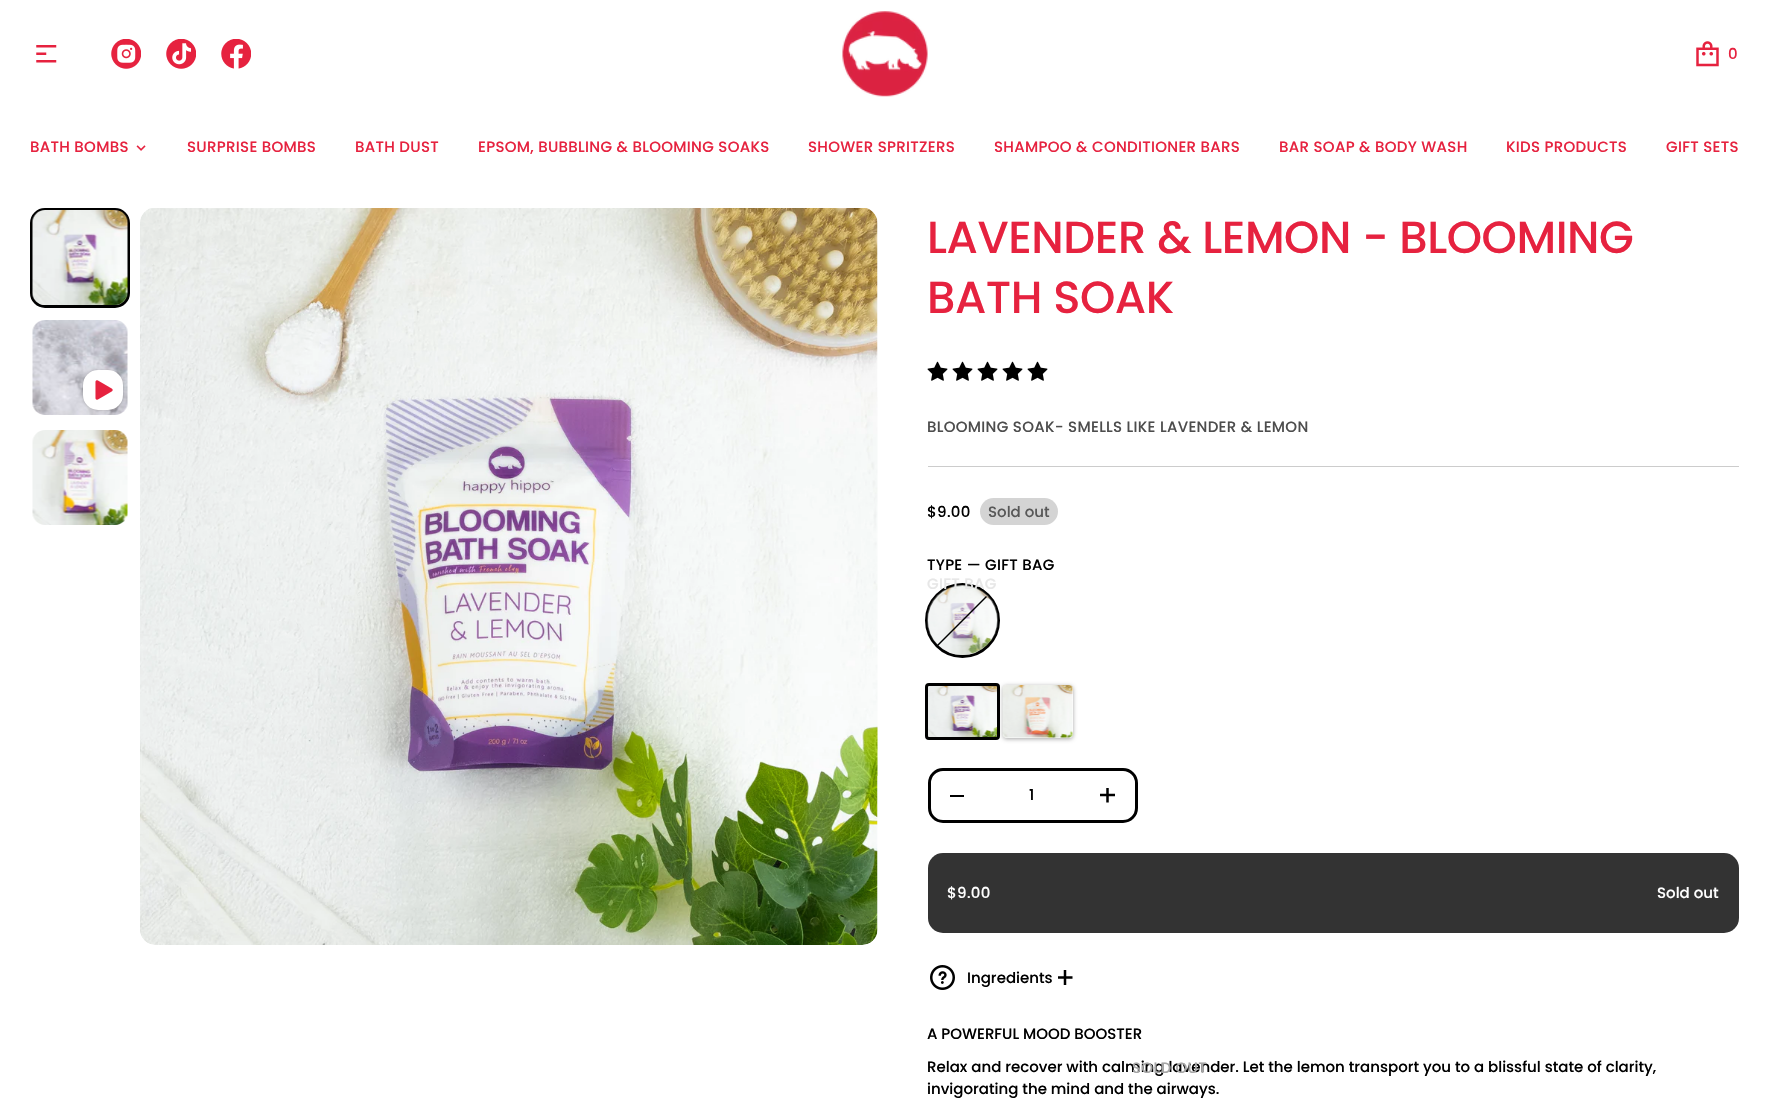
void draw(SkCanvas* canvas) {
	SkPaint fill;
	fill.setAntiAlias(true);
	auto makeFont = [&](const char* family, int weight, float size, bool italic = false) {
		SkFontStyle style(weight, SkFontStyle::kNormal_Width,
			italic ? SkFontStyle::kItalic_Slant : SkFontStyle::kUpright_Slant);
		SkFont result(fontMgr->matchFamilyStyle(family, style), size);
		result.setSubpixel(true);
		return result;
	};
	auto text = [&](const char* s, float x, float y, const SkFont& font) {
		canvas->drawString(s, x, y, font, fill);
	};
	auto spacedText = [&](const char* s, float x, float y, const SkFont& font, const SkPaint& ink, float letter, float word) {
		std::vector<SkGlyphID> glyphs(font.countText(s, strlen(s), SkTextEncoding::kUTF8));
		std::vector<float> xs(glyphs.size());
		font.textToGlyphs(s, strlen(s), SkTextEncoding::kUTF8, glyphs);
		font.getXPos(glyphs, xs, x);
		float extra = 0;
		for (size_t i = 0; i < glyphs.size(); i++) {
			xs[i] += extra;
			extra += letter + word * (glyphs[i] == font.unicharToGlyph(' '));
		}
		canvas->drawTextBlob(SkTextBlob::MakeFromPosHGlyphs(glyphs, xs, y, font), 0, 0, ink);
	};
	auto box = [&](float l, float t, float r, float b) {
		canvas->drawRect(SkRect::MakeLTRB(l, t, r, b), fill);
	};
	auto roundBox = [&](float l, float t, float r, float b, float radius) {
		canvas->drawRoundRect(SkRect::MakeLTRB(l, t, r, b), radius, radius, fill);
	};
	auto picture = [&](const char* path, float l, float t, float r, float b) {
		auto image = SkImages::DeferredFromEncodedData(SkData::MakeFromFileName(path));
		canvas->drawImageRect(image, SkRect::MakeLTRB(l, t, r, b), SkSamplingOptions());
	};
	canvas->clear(0xFFFFFFFF);
	picture("image0.png", 36, 45, 57, 63);
	picture("image1.png", 111, 39, 141, 69);
	picture("image2.png", 166, 39, 196, 69);
	picture("image3.png", 221, 39, 251, 69);
	picture("image4.png", 842, 11, 928, 97);
	picture("image5.png", 1696, 41, 1719, 67);
	picture("image6.png", 136, 145, 146, 151);
	fill.setStyle(SkPaint::kStroke_Style);
	fill.setStrokeWidth(3);
	fill.setColor(0xFF000000);
	canvas->drawRoundRect(SkRect::MakeLTRB(31.5f, 209.5f, 128.5f, 306.5f), 13.5f, 13.5f, fill);
	picture("image7.png", 32, 210, 128, 305);
	picture("image8.png", 32, 320, 128, 415);
	picture("image10.png", 32, 430, 128, 525);
	picture("image11.png", 140, 208, 878, 945);
	canvas->save();
	canvas->clipPath(SkPathBuilder().moveTo(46, 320).lineTo(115, 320).cubicTo(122, 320, 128, 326, 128, 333).lineTo(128, 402).cubicTo(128, 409, 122, 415, 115, 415).lineTo(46, 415).cubicTo(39, 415, 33, 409, 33, 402).lineTo(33, 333).cubicTo(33, 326, 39, 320, 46, 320).close().detach(), true);
	fill.setStyle(SkPaint::kFill_Style);
	fill.setColor(0x1A000000);
	fill.setMaskFilter(SkMaskFilter::MakeBlur(kNormal_SkBlurStyle, 6));
	canvas->drawRoundRect(SkRect::MakeLTRB(83, 373, 123, 413), 15, 15, fill);
	fill.setMaskFilter(nullptr);
	canvas->restore();
	fill.setColor(0x33000000);
	fill.setMaskFilter(SkMaskFilter::MakeBlur(kNormal_SkBlurStyle, 1));
	canvas->drawRoundRect(SkRect::MakeLTRB(83, 370, 123, 410), 15, 15, fill);
	fill.setMaskFilter(nullptr);
	fill.setColor(0xFFFFFFFF);
	roundBox(83, 370, 123, 410, 15);
	picture("image9.png", 95, 380, 113, 400);
	picture("image12.png", 927, 361, 948, 381);
	picture("image12.png", 952, 361, 973, 381);
	picture("image12.png", 977, 361, 998, 381);
	picture("image12.png", 1002, 361, 1023, 381);
	picture("image12.png", 1027, 361, 1048, 381);
	fill.setColor(0xFFCCCCCC);
	box(928, 466, 1739, 467);
	fill.setColor(0xFFD4D4D4);
	roundBox(980, 498, 1058, 525, 13.5f);
	fill.setStyle(SkPaint::kStroke_Style);
	fill.setColor(0xFF000000);
	canvas->drawCircle(962.5f, 620.5f, 36, fill);
	picture("image13.png", 927, 585, 998, 655);
	fill.setStyle(SkPaint::kFill_Style);
	canvas->drawPath(SkPathBuilder().moveTo(937, 645).lineTo(986, 596).lineTo(987, 597).lineTo(938, 646).close().detach(), fill);
	picture("image14.png", 928, 686, 997, 737);
	fill.setStyle(SkPaint::kStroke_Style);
	canvas->drawRoundRect(SkRect::MakeLTRB(926.5f, 684.5f, 998.5f, 738.5f), 2.5f, 2.5f, fill);
	fill.setStyle(SkPaint::kFill_Style);
	fill.setColor(0x59000000);
	fill.setMaskFilter(SkMaskFilter::MakeBlur(kNormal_SkBlurStyle, 2));
	canvas->drawRoundRect(SkRect::MakeLTRB(1003, 686, 1073, 739), 4, 4, fill);
	fill.setMaskFilter(nullptr);
	fill.setColor(0xFFFFFFFF);
	roundBox(1003, 685, 1073, 738, 4);
	picture("image15.png", 1002, 685, 1073, 738);
	fill.setStyle(SkPaint::kStroke_Style);
	fill.setColor(0xFF000000);
	canvas->drawRoundRect(SkRect::MakeLTRB(929.5f, 769.5f, 1136.5f, 821.5f), 13.5f, 13.5f, fill);
	fill.setStyle(SkPaint::kFill_Style);
	box(950, 795, 964, 797);
	picture("image16.png", 1100, 788, 1115, 803);
	fill.setColor(0xFF333333);
	roundBox(928, 853, 1739, 933, 15);
	picture("image17.png", 930, 965, 955, 990);
	picture("image18.png", 1058, 970, 1073, 985);
	auto font1 = makeFont("Poppins", 500, 15);
	fill.setColor(0xFFE6223F);
	text("0", 1728, 59, font1);
	spacedText("BATH BOMBS", 30, 152, font1, fill, 0.3f, 0);
	spacedText("SURPRISE BOMBS", 187, 152, font1, fill, 0.3f, 0);
	spacedText("BATH DUST", 355, 152, font1, fill, 0.3f, 0);
	spacedText("EPSOM, BUBBLING & BLOOMING SOAKS", 478, 152, font1, fill, 0.3f, 0);
	spacedText("SHOWER SPRITZERS", 808, 152, font1, fill, 0.3f, 0);
	spacedText("SHAMPOO & CONDITIONER BARS", 994, 152, font1, fill, 0.3f, 0);
	spacedText("BAR SOAP & BODY WASH", 1279, 152, font1, fill, 0.3f, 0);
	spacedText("KIDS PRODUCTS", 1506, 152, font1, fill, 0.3f, 0);
	spacedText("GIFT SETS", 1666, 152, font1, fill, 0.3f, 0);
	auto font2 = makeFont("Poppins", 500, 45);
	spacedText("LAVENDER & LEMON - BLOOMING", 927, 253, font2, fill, -0.45f, 0);
	spacedText("BATH SOAK", 927, 313, font2, fill, -0.45f, 0);
	fill.setColor(0xFF4D4D4D);
	spacedText("BLOOMING SOAK- SMELLS LIKE LAVENDER & LEMON", 927, 432, font1, fill, 0.3f, 0);
	fill.setColor(0xFF000000);
	spacedText("$9.00", 927, 517, font1, fill, 0.3f, 0);
	fill.setColor(0xFF585858);
	text("Sold out", 988, 517, font1);
	fill.setColor(0xFF000000);
	spacedText("TYPE — GIFT BAG", 927, 570, font1, fill, 0.3f, 0);
	fill.setColor(0xFFE7E7E7);
	spacedText("GIFT BAG", 927, 589, font1, fill, 0.3f, 0);
	fill.setColor(0xFF000000);
	spacedText("1", 1029, 800, font1, fill, 0.3f, 0);
	fill.setColor(0xFFFFFFFF);
	spacedText("$9.00", 947, 898, font1, fill, 0.3f, 0);
	text("Sold out", 1657, 898, font1);
	fill.setColor(0xFF000000);
	text("Ingredients", 967, 983, font1);
	text("A POWERFUL MOOD BOOSTER", 927, 1039, font1);
	text("Relax and recover with calming lavender. Let the lemon transport you to a blissful state of clarity,", 927, 1072, font1);
	text("invigorating the mind and the airways.", 927, 1094, font1);
	fill.setColor(0xFFA6A6A6);
	spacedText("SOLD OUT", 1132, 1073, font1, fill, 0.3f, 0);
}
